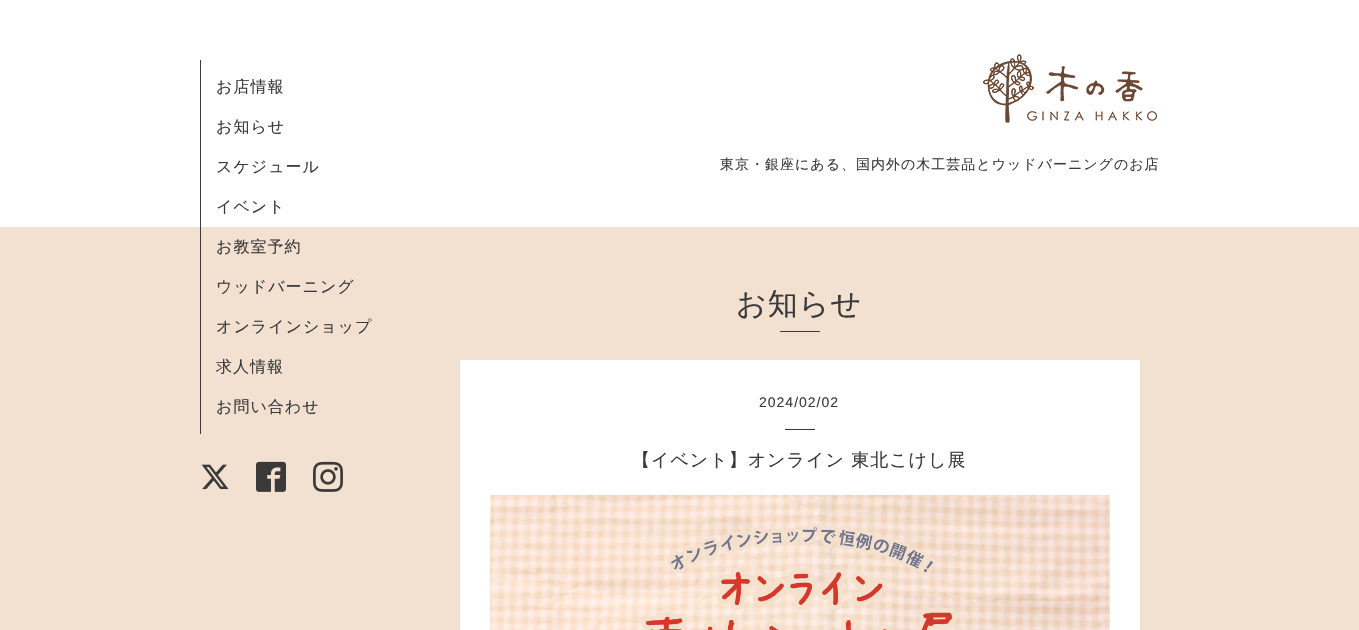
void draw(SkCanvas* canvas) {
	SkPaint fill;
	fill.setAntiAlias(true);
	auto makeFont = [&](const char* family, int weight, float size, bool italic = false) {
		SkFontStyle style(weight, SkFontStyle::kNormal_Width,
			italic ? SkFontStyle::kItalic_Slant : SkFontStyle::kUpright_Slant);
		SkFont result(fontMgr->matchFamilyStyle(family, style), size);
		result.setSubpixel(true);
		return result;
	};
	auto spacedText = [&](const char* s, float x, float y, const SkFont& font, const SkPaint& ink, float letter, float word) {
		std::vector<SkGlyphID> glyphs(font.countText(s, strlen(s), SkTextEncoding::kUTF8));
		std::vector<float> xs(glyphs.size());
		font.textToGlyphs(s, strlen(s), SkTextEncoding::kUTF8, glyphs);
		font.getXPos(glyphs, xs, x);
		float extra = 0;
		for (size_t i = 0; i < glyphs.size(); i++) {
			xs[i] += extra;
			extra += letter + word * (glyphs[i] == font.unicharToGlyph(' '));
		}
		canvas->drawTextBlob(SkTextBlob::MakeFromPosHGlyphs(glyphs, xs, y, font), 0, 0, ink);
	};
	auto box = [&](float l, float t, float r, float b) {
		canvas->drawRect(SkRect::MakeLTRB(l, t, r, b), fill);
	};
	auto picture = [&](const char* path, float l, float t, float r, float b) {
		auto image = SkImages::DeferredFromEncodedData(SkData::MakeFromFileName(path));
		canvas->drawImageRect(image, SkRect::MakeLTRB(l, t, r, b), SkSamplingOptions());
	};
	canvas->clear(0xFFFFFFFF);
	fill.setColor(0xFFF2E1D1);
	box(0, 227, 1359, 630);
	fill.setColor(0xFF3A3A3A);
	box(200, 60, 201, 434);
	picture("image0.png", 201, 464, 229, 490);
	picture("image1.png", 256, 461, 286, 492);
	picture("image2.png", 313, 461, 343, 492);
	picture("image3.png", 983, 54, 1157, 123);
	box(780, 331, 820, 332);
	fill.setColor(0xFFFFFFFF);
	box(460, 360, 1140, 630);
	fill.setColor(0xFF3A3A3A);
	box(785, 429, 815, 430);
	picture("image4.png", 490, 495, 1110, 630);
	auto font1 = makeFont("WenQuanYi Zen Hei", 500, 16);
	spacedText("お店情報", 216, 92, font1, fill, 1, 0);
	spacedText("お知らせ", 216, 132, font1, fill, 1, 0);
	spacedText("スケジュール", 216, 172, font1, fill, 1, 0);
	spacedText("イベント", 216, 212, font1, fill, 1, 0);
	spacedText("お教室予約", 216, 252, font1, fill, 1, 0);
	spacedText("ウッドバーニング", 216, 292, font1, fill, 1, 0);
	spacedText("オンラインショップ", 216, 332, font1, fill, 1, 0);
	spacedText("求人情報", 216, 372, font1, fill, 1, 0);
	spacedText("お問い合わせ", 216, 412, font1, fill, 1, 0);
	auto font2 = makeFont("WenQuanYi Zen Hei", 500, 14);
	spacedText("東京・銀座にある、国内外の木工芸品とウッドバーニングのお店", 720, 169, font2, fill, 1, 0);
	auto font3 = makeFont("WenQuanYi Zen Hei", 500, 30);
	spacedText("お知らせ", 736, 314, font3, fill, 1, 0);
	auto font4 = makeFont("Liberation Sans", 400, 14);
	spacedText("2024/02/02", 759, 407, font4, fill, 1, 0);
	auto font5 = makeFont("WenQuanYi Zen Hei", 500, 18);
	spacedText("【イベント】オンライン 東北こけし展", 632, 466, font5, fill, 1, 0);
}
